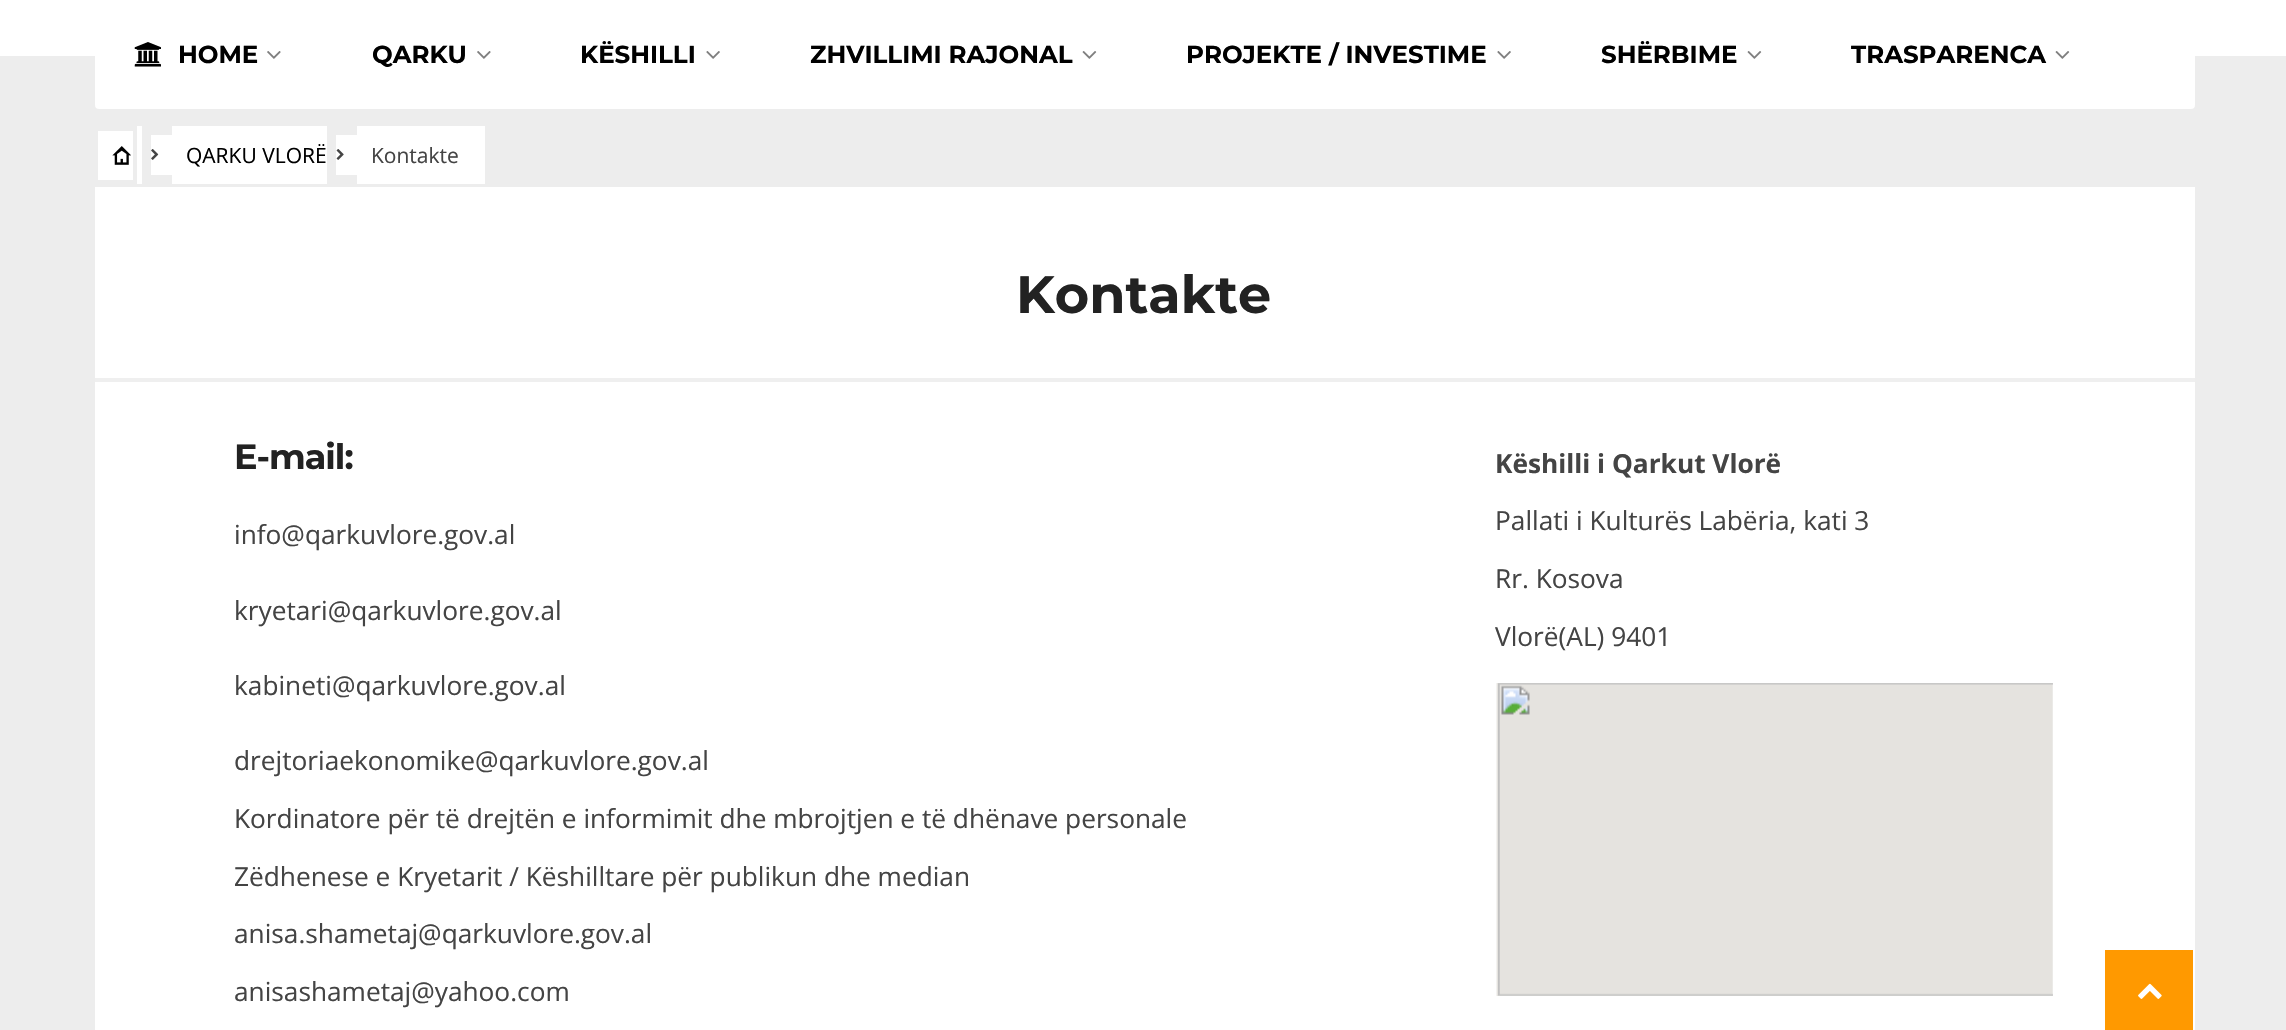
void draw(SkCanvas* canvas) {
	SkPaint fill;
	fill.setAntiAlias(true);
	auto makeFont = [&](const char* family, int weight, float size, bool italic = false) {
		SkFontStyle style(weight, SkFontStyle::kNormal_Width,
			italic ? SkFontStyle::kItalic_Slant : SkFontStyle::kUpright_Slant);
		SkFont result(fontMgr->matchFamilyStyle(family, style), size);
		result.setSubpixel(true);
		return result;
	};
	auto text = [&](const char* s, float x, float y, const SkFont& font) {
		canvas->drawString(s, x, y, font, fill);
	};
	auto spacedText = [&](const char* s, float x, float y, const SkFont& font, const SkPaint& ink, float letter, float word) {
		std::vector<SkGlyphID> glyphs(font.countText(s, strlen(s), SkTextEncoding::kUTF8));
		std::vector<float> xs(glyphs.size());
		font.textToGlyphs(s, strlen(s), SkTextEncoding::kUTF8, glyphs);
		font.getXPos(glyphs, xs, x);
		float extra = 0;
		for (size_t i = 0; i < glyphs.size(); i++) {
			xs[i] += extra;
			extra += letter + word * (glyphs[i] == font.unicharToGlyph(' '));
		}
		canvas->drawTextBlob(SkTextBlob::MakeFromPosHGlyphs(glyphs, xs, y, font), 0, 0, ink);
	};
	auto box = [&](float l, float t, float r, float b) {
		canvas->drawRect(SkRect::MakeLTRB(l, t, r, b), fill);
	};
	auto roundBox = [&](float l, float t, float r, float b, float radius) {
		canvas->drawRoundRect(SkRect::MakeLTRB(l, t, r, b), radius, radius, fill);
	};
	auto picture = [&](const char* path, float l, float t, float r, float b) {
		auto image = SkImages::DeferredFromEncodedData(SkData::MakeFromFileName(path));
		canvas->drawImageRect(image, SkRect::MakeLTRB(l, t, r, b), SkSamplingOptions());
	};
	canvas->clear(0xFFEDEDED);
	fill.setColor(0xFFFFFFFF);
	box(0, 0, 2286, 56);
	roundBox(95, 4, 2195, 109, 4);
	picture("image0.png", 134, 42, 161, 67);
	picture("image1.png", 267, 51, 281, 59);
	picture("image1.png", 477, 51, 491, 59);
	picture("image2.png", 706, 51, 720, 59);
	picture("image3.png", 1082, 51, 1097, 59);
	picture("image2.png", 1497, 51, 1511, 59);
	picture("image3.png", 1747, 51, 1762, 59);
	picture("image3.png", 2055, 51, 2070, 59);
	box(98, 131, 133, 180);
	box(137, 126, 142, 184);
	box(151, 135, 172, 175);
	picture("image4.png", 112, 146, 131, 165);
	picture("image5.png", 151, 149, 159, 160);
	box(172, 126, 327, 184);
	box(336, 135, 357, 175);
	picture("image6.png", 336, 149, 344, 160);
	box(357, 126, 485, 184);
	box(95, 187, 2195, 1030);
	fill.setColor(0xFFEFEFEF);
	box(95, 378, 2195, 382);
	picture("image7.png", 1496, 683, 2053, 996);
	fill.setColor(0xFFFF9900);
	box(2105, 950, 2193, 1030);
	picture("image8.png", 2138, 983, 2162, 999);
	auto font1 = makeFont("Montserrat", 700, 24.5f);
	fill.setColor(0xFF000000);
	text("HOME", 178, 63, font1);
	text("QARKU", 372, 63, font1);
	text("KËSHILLI", 580, 63, font1);
	text("ZHVILLIMI RAJONAL", 810, 63, font1);
	text("PROJEKTE / INVESTIME", 1186, 63, font1);
	text("SHËRBIME", 1601, 63, font1);
	text("TRASPARENCA", 1851, 63, font1);
	auto font2 = makeFont("Open Sans", 400, 21);
	text("QARKU VLORË", 186, 163, font2);
	fill.setColor(0xFF444444);
	text("Kontakte", 371, 163, font2);
	auto font3 = makeFont("Montserrat", 700, 52.5f);
	fill.setColor(0xFF222222);
	text("Kontakte", 1016, 313, font3);
	auto font4 = makeFont("Montserrat", 700, 35);
	spacedText("E-mail:", 234, 469, font4, fill, -1, 0);
	auto font5 = makeFont("Open Sans", 400, 26.25f);
	fill.setColor(0xFF444444);
	text("info@qarkuvlore.gov.al", 234, 544, font5);
	text("kryetari@qarkuvlore.gov.al", 234, 620, font5);
	text("kabineti@qarkuvlore.gov.al", 234, 695, font5);
	text("drejtoriaekonomike@qarkuvlore.gov.al", 234, 770, font5);
	text("Kordinatore për të drejtën e informimit dhe mbrojtjen e të dhënave personale", 234, 828, font5);
	text("Zëdhenese e Kryetarit / Këshilltare për publikun dhe median", 234, 886, font5);
	text("anisa.shametaj@qarkuvlore.gov.al", 234, 943, font5);
	text("anisashametaj@yahoo.com", 234, 1001, font5);
	auto font6 = makeFont("Open Sans", 700, 26.25f);
	text("Këshilli i Qarkut Vlorë", 1495, 473, font6);
	text("Pallati i Kulturës Labëria, kati 3", 1495, 530, font5);
	text("Rr. Kosova", 1495, 588, font5);
	text("Vlorë(AL) 9401", 1495, 646, font5);
}
